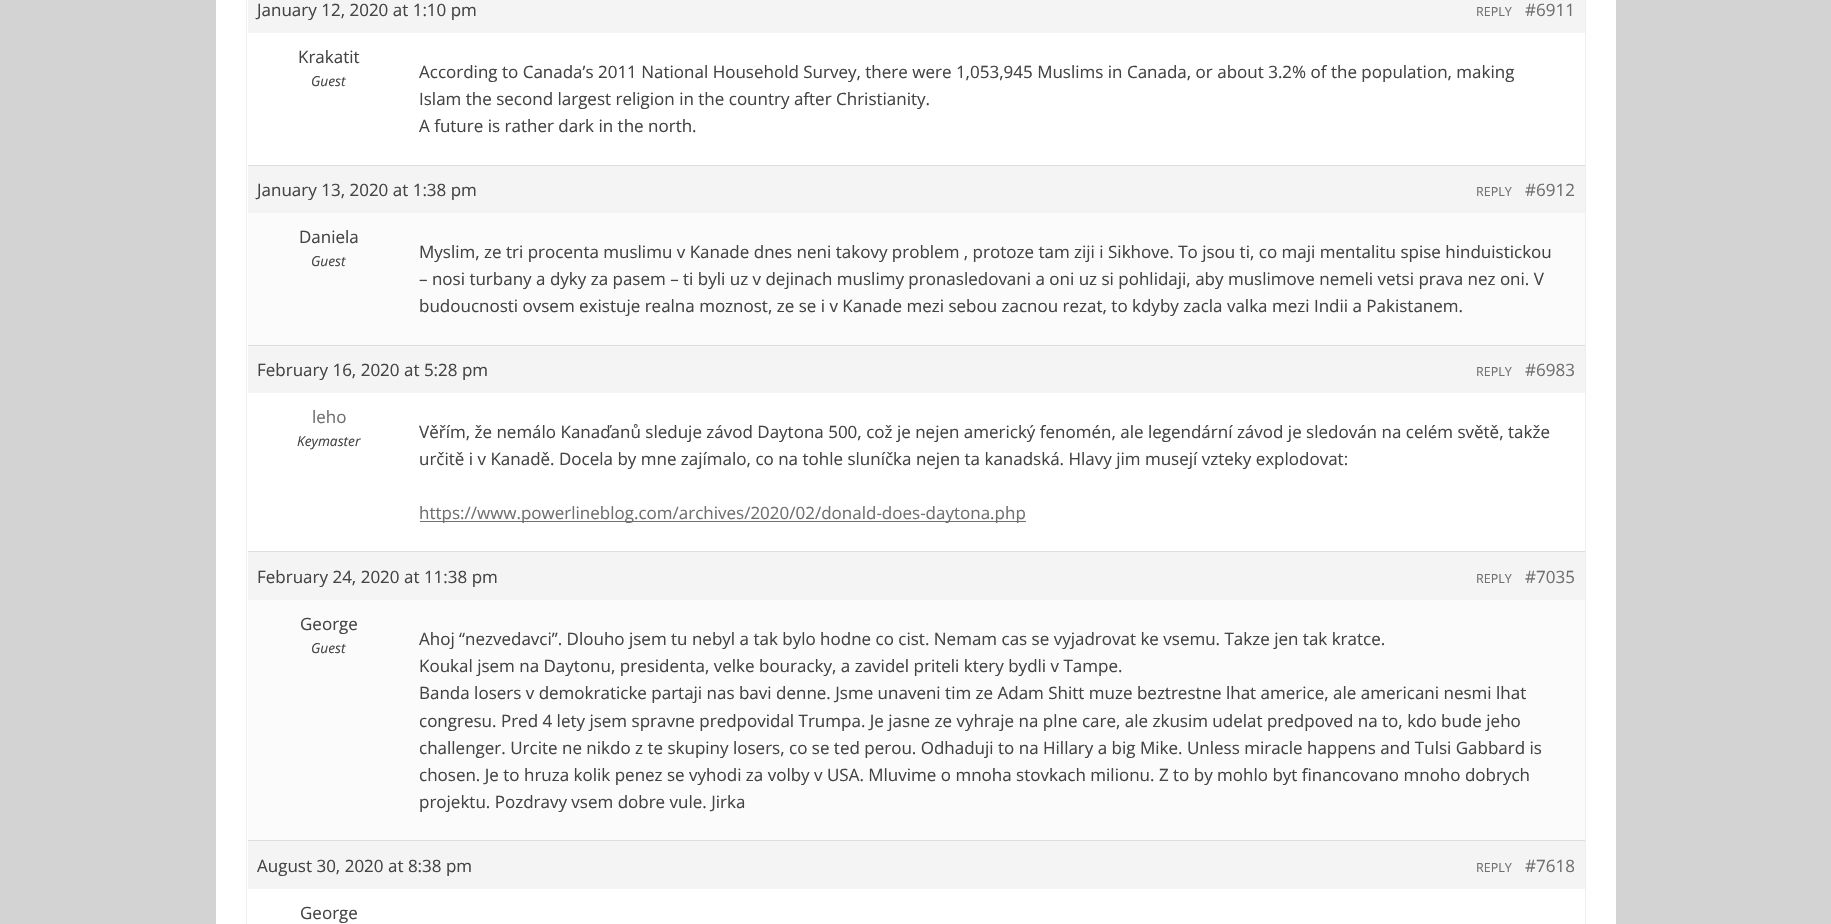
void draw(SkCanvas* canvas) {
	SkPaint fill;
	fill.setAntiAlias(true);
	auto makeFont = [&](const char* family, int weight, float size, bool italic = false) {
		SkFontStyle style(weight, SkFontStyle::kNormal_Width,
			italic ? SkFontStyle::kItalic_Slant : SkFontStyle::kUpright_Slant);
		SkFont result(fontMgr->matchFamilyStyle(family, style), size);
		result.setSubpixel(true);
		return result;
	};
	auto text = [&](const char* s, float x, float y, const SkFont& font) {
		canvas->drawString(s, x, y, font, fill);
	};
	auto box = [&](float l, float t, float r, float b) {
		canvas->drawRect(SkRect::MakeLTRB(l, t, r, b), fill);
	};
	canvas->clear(0xFFD3D3D3);
	fill.setColor(0xFFFFFFFF);
	box(216, 0, 1616, 924);
	fill.setStyle(SkPaint::kStroke_Style);
	fill.setStrokeWidth(1);
	fill.setColor(0xFFEEEEEE);
	canvas->drawRect(SkRect::MakeLTRB(246.5f, -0.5f, 1585.5f, 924.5f), fill);
	fill.setStyle(SkPaint::kFill_Style);
	fill.setColor(0xFFF4F4F4);
	box(248, 0, 1585, 33);
	box(248, 166, 1585, 213);
	fill.setColor(0xFFDDDDDD);
	box(248, 165, 1585, 166);
	fill.setColor(0xFFFBFBFB);
	box(248, 213, 1585, 345);
	fill.setColor(0xFFF4F4F4);
	box(248, 346, 1585, 393);
	fill.setColor(0xFFDDDDDD);
	box(248, 345, 1585, 346);
	fill.setColor(0xFF707070);
	box(420, 521, 1026, 522);
	fill.setColor(0xFFF4F4F4);
	box(248, 552, 1585, 600);
	fill.setColor(0xFFDDDDDD);
	box(248, 551, 1585, 552);
	fill.setColor(0xFFFBFBFB);
	box(248, 600, 1585, 840);
	fill.setColor(0xFFF4F4F4);
	box(248, 841, 1585, 889);
	fill.setColor(0xFFDDDDDD);
	box(248, 840, 1585, 841);
	auto font1 = makeFont("Open Sans", 400, 17);
	fill.setColor(0xFF444444);
	text("January 12, 2020 at 1:10 pm", 257, 16, font1);
	auto font2 = makeFont("Open Sans", 400, 12.5f);
	fill.setColor(0xFF707070);
	text("REPLY", 1476, 16, font2);
	text("#6911", 1525, 16, font1);
	fill.setColor(0xFF444444);
	text("Krakatit", 298, 63, font1);
	auto font3 = makeFont("Open Sans", 400, 13.75f, true);
	text("Guest", 311, 86, font3);
	text("According to Canada’s 2011 National Household Survey, there were 1,053,945 Muslims in Canada, or about 3.2% of the population, making", 419, 78, font1);
	text("Islam the second largest religion in the country after Christianity.", 419, 105, font1);
	text("A future is rather dark in the north.", 419, 132, font1);
	text("January 13, 2020 at 1:38 pm", 257, 196, font1);
	fill.setColor(0xFF707070);
	text("REPLY", 1476, 196, font2);
	text("#6912", 1525, 196, font1);
	fill.setColor(0xFF444444);
	text("Daniela", 299, 243, font1);
	text("Guest", 311, 266, font3);
	text("Myslim, ze tri procenta muslimu v Kanade dnes neni takovy problem , protoze tam ziji i Sikhove. To jsou ti, co maji mentalitu spise hinduistickou", 419, 258, font1);
	text("– nosi turbany a dyky za pasem – ti byli uz v dejinach muslimy pronasledovani a oni uz si pohlidaji, aby muslimove nemeli vetsi prava nez oni. V", 419, 285, font1);
	text("budoucnosti ovsem existuje realna moznost, ze se i v Kanade mezi sebou zacnou rezat, to kdyby zacla valka mezi Indii a Pakistanem.", 419, 312, font1);
	text("February 16, 2020 at 5:28 pm", 257, 376, font1);
	fill.setColor(0xFF707070);
	text("REPLY", 1476, 376, font2);
	text("#6983", 1525, 376, font1);
	text("leho", 312, 423, font1);
	fill.setColor(0xFF444444);
	text("Keymaster", 297, 446, font3);
	text("Věřím, že nemálo Kanaďanů sleduje závod Daytona 500, což je nejen americký fenomén, ale legendární závod je sledován na celém světě, takže", 419, 438, font1);
	text("určitě i v Kanadě. Docela by mne zajímalo, co na tohle sluníčka nejen ta kanadská. Hlavy jim musejí vzteky explodovat:", 419, 465, font1);
	fill.setColor(0xFF707070);
	text("https://www.powerlineblog.com/archives/2020/02/donald-does-daytona.php", 419, 519, font1);
	fill.setColor(0xFF444444);
	text("February 24, 2020 at 11:38 pm", 257, 583, font1);
	fill.setColor(0xFF707070);
	text("REPLY", 1476, 583, font2);
	text("#7035", 1525, 583, font1);
	fill.setColor(0xFF444444);
	text("George", 300, 630, font1);
	text("Guest", 311, 653, font3);
	text("Ahoj “nezvedavci”. Dlouho jsem tu nebyl a tak bylo hodne co cist. Nemam cas se vyjadrovat ke vsemu. Takze jen tak kratce.", 419, 645, font1);
	text("Koukal jsem na Daytonu, presidenta, velke bouracky, a zavidel priteli ktery bydli v Tampe.", 419, 672, font1);
	text("Banda losers v demokraticke partaji nas bavi denne. Jsme unaveni tim ze Adam Shitt muze beztrestne lhat americe, ale americani nesmi lhat", 419, 699, font1);
	text("congresu. Pred 4 lety jsem spravne predpovidal Trumpa. Je jasne ze vyhraje na plne care, ale zkusim udelat predpoved na to, kdo bude jeho", 419, 727, font1);
	text("challenger. Urcite ne nikdo z te skupiny losers, co se ted perou. Odhaduji to na Hillary a big Mike. Unless miracle happens and Tulsi Gabbard is", 419, 754, font1);
	text("chosen. Je to hruza kolik penez se vyhodi za volby v USA. Mluvime o mnoha stovkach milionu. Z to by mohlo byt financovano mnoho dobrych", 419, 781, font1);
	text("projektu. Pozdravy vsem dobre vule. Jirka", 419, 808, font1);
	text("August 30, 2020 at 8:38 pm", 257, 872, font1);
	fill.setColor(0xFF707070);
	text("REPLY", 1476, 872, font2);
	text("#7618", 1525, 872, font1);
	fill.setColor(0xFF444444);
	text("George", 300, 919, font1);
}
